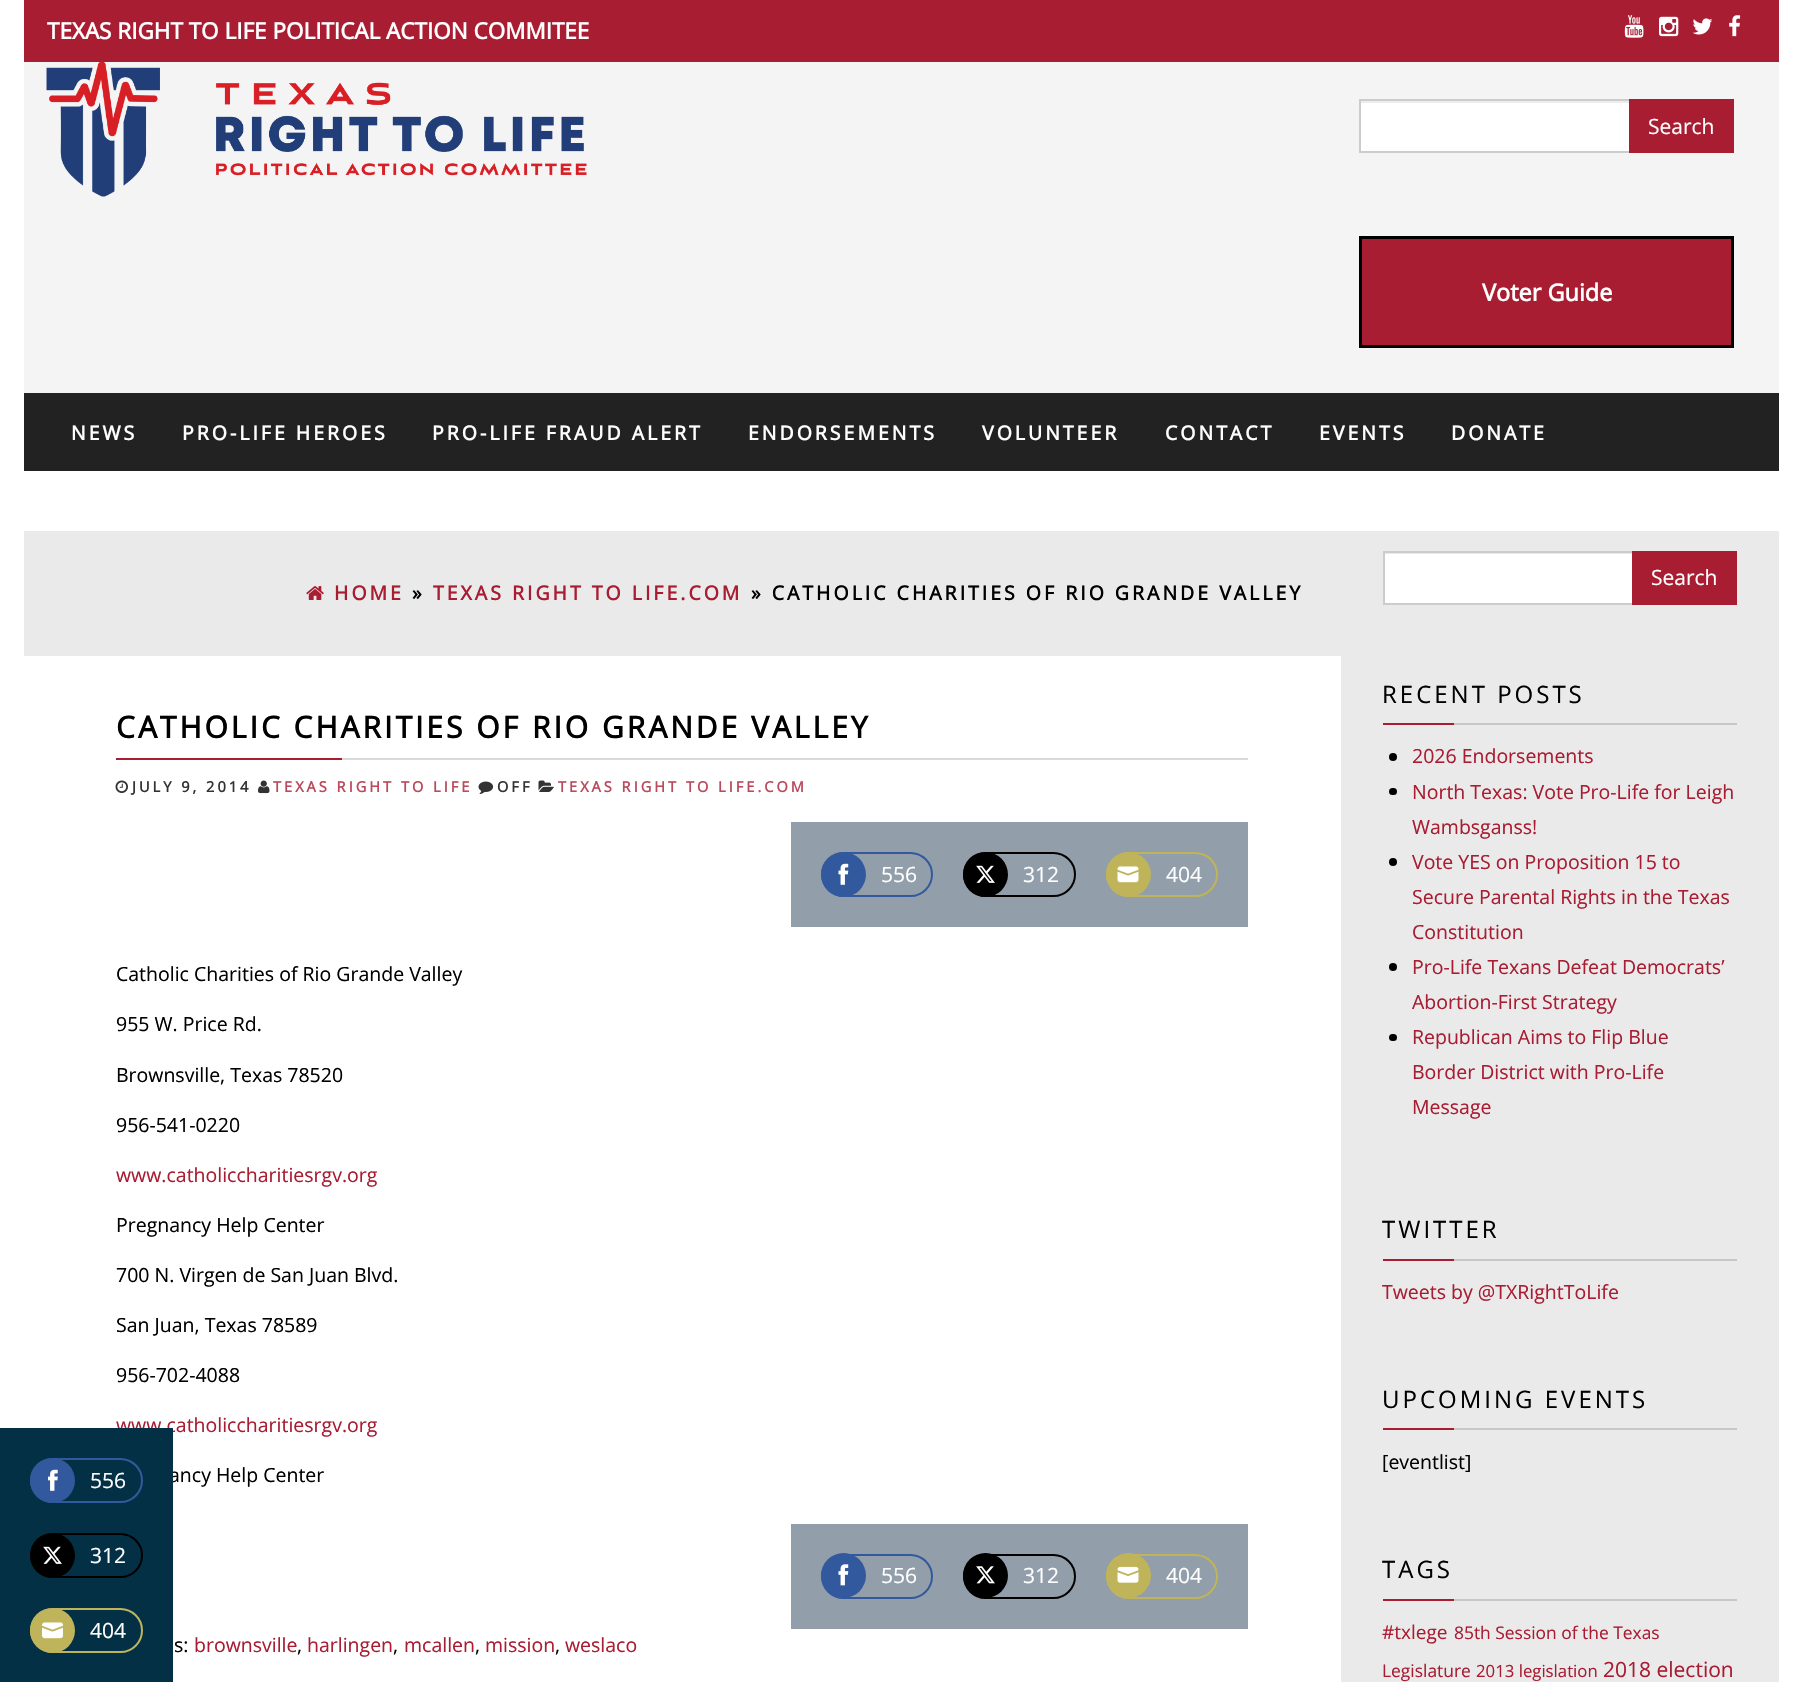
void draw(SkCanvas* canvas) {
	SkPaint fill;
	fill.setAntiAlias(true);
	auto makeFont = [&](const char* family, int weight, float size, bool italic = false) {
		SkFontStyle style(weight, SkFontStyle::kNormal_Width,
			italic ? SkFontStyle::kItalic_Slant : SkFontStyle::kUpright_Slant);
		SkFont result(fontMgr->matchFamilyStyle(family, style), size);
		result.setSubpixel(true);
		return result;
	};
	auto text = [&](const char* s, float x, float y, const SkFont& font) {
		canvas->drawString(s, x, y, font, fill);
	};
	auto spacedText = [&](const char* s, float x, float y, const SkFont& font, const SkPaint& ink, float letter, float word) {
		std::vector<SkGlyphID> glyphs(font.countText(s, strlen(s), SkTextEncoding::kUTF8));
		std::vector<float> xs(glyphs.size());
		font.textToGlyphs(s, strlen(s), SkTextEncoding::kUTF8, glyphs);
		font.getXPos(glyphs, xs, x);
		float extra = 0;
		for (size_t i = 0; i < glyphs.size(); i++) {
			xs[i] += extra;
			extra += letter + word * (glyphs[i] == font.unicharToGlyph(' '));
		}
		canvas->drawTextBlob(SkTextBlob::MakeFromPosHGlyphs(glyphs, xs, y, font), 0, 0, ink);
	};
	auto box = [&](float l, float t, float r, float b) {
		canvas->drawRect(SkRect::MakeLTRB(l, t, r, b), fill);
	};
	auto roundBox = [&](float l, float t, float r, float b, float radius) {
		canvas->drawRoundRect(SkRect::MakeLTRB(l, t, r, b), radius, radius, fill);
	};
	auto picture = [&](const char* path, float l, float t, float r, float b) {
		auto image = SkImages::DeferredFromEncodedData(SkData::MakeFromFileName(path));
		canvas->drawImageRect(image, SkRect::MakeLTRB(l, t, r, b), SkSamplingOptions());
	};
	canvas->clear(0xFFFFFFFF);
	fill.setColor(0xFFF4F4F4);
	box(24, 62, 1779, 393);
	fill.setColor(0xFFA91D33);
	box(24, 0, 1779, 62);
	picture("image0.png", 1624, 15, 1644, 38);
	picture("image1.png", 1659, 16, 1679, 37);
	picture("image2.png", 1692, 18, 1713, 35);
	picture("image3.png", 1729, 15, 1741, 37);
	picture("image4.png", 46, 61, 587, 197);
	fill.setColor(0xFFFFFFFF);
	box(1361, 103, 1629, 151);
	fill.setColor(0xFFECECEC);
	box(1361, 101, 1629, 103);
	fill.setStyle(SkPaint::kStroke_Style);
	fill.setStrokeWidth(2);
	fill.setColor(0xFFCCCCCC);
	canvas->drawRect(SkRect::MakeLTRB(1360, 100, 1733, 152), fill);
	fill.setStyle(SkPaint::kFill_Style);
	fill.setColor(0xFFA91D33);
	box(1629, 99, 1734, 153);
	canvas->drawRect(SkRect::MakeLTRB(1360.5f, 237.5f, 1732.5f, 346.5f), fill);
	fill.setStyle(SkPaint::kStroke_Style);
	fill.setStrokeWidth(3);
	fill.setColor(0xFF000000);
	canvas->drawRect(SkRect::MakeLTRB(1360.5f, 237.5f, 1732.5f, 346.5f), fill);
	fill.setStyle(SkPaint::kFill_Style);
	fill.setColor(0xFF222222);
	box(24, 393, 1779, 471);
	fill.setColor(0xFFEAEAEA);
	box(24, 531, 1341, 656);
	picture("image5.png", 306, 586, 324, 600);
	fill.setColor(0xFFD9D9D9);
	box(342, 758, 1248, 760);
	fill.setColor(0xFFA91D33);
	box(116, 758, 342, 760);
	picture("image6.png", 115, 780, 128, 793);
	picture("image7.png", 258, 780, 270, 794);
	picture("image8.png", 478, 781, 494, 794);
	picture("image9.png", 538, 780, 554, 792);
	fill.setColor(0xFF929EAA);
	box(791, 822, 1248, 927);
	fill.setStyle(SkPaint::kStroke_Style);
	fill.setStrokeWidth(2);
	fill.setColor(0xFF32599D);
	canvas->drawRoundRect(SkRect::MakeLTRB(822, 853, 932, 896), 21.5f, 21.5f, fill);
	fill.setStyle(SkPaint::kFill_Style);
	canvas->drawCircle(843.5f, 874.5f, 22.5f, fill);
	picture("image10.png", 838, 863, 849, 885);
	fill.setStyle(SkPaint::kStroke_Style);
	fill.setColor(0xFF000000);
	canvas->drawRoundRect(SkRect::MakeLTRB(964, 853, 1075, 896), 21.5f, 21.5f, fill);
	fill.setStyle(SkPaint::kFill_Style);
	canvas->drawCircle(985.5f, 874.5f, 22.5f, fill);
	picture("image11.png", 976, 865, 995, 883);
	fill.setStyle(SkPaint::kStroke_Style);
	fill.setColor(0xFFBFB45A);
	canvas->drawRoundRect(SkRect::MakeLTRB(1107, 853, 1217, 896), 21.5f, 21.5f, fill);
	fill.setStyle(SkPaint::kFill_Style);
	canvas->drawCircle(1128.5f, 874.5f, 22.5f, fill);
	picture("image12.png", 1117, 866, 1139, 883);
	fill.setColor(0xFF929EAA);
	box(791, 1524, 1248, 1629);
	fill.setStyle(SkPaint::kStroke_Style);
	fill.setColor(0xFF32599D);
	canvas->drawRoundRect(SkRect::MakeLTRB(822, 1555, 932, 1598), 21.5f, 21.5f, fill);
	fill.setStyle(SkPaint::kFill_Style);
	canvas->drawCircle(843.5f, 1575.5f, 22.5f, fill);
	picture("image13.png", 838, 1564, 849, 1586);
	fill.setStyle(SkPaint::kStroke_Style);
	fill.setColor(0xFF000000);
	canvas->drawRoundRect(SkRect::MakeLTRB(964, 1555, 1075, 1598), 21.5f, 21.5f, fill);
	fill.setStyle(SkPaint::kFill_Style);
	canvas->drawCircle(985.5f, 1575.5f, 22.5f, fill);
	picture("image14.png", 976, 1566, 995, 1584);
	fill.setStyle(SkPaint::kStroke_Style);
	fill.setColor(0xFFBFB45A);
	canvas->drawRoundRect(SkRect::MakeLTRB(1107, 1555, 1217, 1598), 21.5f, 21.5f, fill);
	fill.setStyle(SkPaint::kFill_Style);
	canvas->drawCircle(1128.5f, 1575.5f, 22.5f, fill);
	picture("image15.png", 1117, 1566, 1139, 1583);
	fill.setColor(0xFFEAEAEA);
	box(1341, 531, 1779, 1682);
	fill.setColor(0xFFFFFFFF);
	box(1385, 554, 1632, 603);
	fill.setStyle(SkPaint::kStroke_Style);
	fill.setColor(0xFFCCCCCC);
	canvas->drawRect(SkRect::MakeLTRB(1384, 552, 1736, 604), fill);
	fill.setStyle(SkPaint::kFill_Style);
	fill.setColor(0xFFA91D33);
	box(1632, 551, 1737, 605);
	fill.setColor(0xFFC7C7C7);
	box(1454, 723, 1737, 725);
	fill.setColor(0xFFA91D33);
	box(1383, 723, 1454, 725);
	fill.setColor(0xFF000000);
	canvas->drawCircle(1393, 757, 4, fill);
	roundBox(1389, 788, 1397, 795, 3.5f);
	canvas->drawCircle(1393, 862, 4, fill);
	canvas->drawCircle(1393, 967, 4, fill);
	roundBox(1389, 1034, 1397, 1041, 3.5f);
	fill.setColor(0xFFC7C7C7);
	box(1454, 1259, 1737, 1261);
	fill.setColor(0xFFA91D33);
	box(1383, 1259, 1454, 1261);
	fill.setColor(0xFFC7C7C7);
	box(1454, 1428, 1737, 1430);
	fill.setColor(0xFFA91D33);
	box(1383, 1428, 1454, 1430);
	fill.setColor(0xFFC7C7C7);
	box(1454, 1599, 1737, 1601);
	fill.setColor(0xFFA91D33);
	box(1383, 1599, 1454, 1601);
	auto font1 = makeFont("Open Sans", 700, 22.5f);
	fill.setColor(0xFFFFFFFF);
	text("TEXAS RIGHT TO LIFE POLITICAL ACTION COMMITEE", 47, 39, font1);
	auto font2 = makeFont("Open Sans", 400, 21);
	text("Search", 1648, 134, font2);
	auto font3 = makeFont("Open Sans", 700, 23.5f);
	text("Voter Guide", 1482, 301, font3);
	auto font4 = makeFont("Open Sans", 700, 19.5f);
	spacedText("NEWS", 71, 440, font4, fill, 3, 0);
	spacedText("PRO-LIFE HEROES", 182, 440, font4, fill, 3, 0);
	spacedText("PRO-LIFE FRAUD ALERT", 432, 440, font4, fill, 3, 0);
	spacedText("ENDORSEMENTS", 748, 440, font4, fill, 3, 0);
	spacedText("VOLUNTEER", 982, 440, font4, fill, 3, 0);
	spacedText("CONTACT", 1165, 440, font4, fill, 3, 0);
	spacedText("EVENTS", 1319, 440, font4, fill, 3, 0);
	spacedText("DONATE", 1451, 440, font4, fill, 3, 0);
	fill.setColor(0xFFA91D33);
	spacedText("HOME", 334, 600, font4, fill, 3, 0);
	fill.setColor(0xFF000000);
	spacedText("»", 412, 600, font4, fill, 3, 0);
	fill.setColor(0xFFA91D33);
	spacedText("TEXAS RIGHT TO LIFE.COM", 433, 600, font4, fill, 3, 0);
	fill.setColor(0xFF000000);
	spacedText("» CATHOLIC CHARITIES OF RIO GRANDE VALLEY", 751, 600, font4, fill, 3, 0);
	auto font5 = makeFont("Open Sans", 700, 30);
	spacedText("CATHOLIC CHARITIES OF RIO GRANDE VALLEY", 116, 738, font5, fill, 3, 0);
	auto font6 = makeFont("Open Sans", 700, 14.6f);
	fill.setColor(0xFF333333);
	spacedText("JULY 9, 2014", 132, 792, font6, fill, 3, 0);
	fill.setColor(0xFFBA4A5C);
	spacedText("TEXAS RIGHT TO LIFE", 273, 792, font6, fill, 3, 0);
	fill.setColor(0xFF333333);
	spacedText("OFF", 497, 792, font6, fill, 3, 0);
	fill.setColor(0xFFBA4A5C);
	spacedText("TEXAS RIGHT TO LIFE.COM", 558, 792, font6, fill, 3, 0);
	fill.setColor(0xFFFFFFFF);
	text("556", 881, 882, font2);
	text("312", 1023, 882, font2);
	text("404", 1166, 882, font2);
	auto font7 = makeFont("Open Sans", 400, 19.5f);
	fill.setColor(0xFF000000);
	text("Catholic Charities of Rio Grande Valley", 116, 981, font7);
	text("955 W. Price Rd.", 116, 1031, font7);
	text("Brownsville, Texas 78520", 116, 1082, font7);
	text("956-541-0220", 116, 1132, font7);
	fill.setColor(0xFFA91D33);
	text("www.catholiccharitiesrgv.org", 116, 1182, font7);
	fill.setColor(0xFF000000);
	text("Pregnancy Help Center", 116, 1232, font7);
	text("700 N. Virgen de San Juan Blvd.", 116, 1282, font7);
	text("San Juan, Texas 78589", 116, 1332, font7);
	text("956-702-4088", 116, 1382, font7);
	fill.setColor(0xFFA91D33);
	text("www.catholiccharitiesrgv.org", 116, 1432, font7);
	fill.setColor(0xFF000000);
	text("ancy Help Center", 169, 1482, font7);
	fill.setColor(0xFFFFFFFF);
	text("556", 881, 1583, font2);
	text("312", 1023, 1583, font2);
	text("404", 1166, 1583, font2);
	fill.setColor(0xFF000000);
	text("s:", 174, 1652, font7);
	fill.setColor(0xFFA91D33);
	text("brownsville", 194, 1652, font7);
	fill.setColor(0xFF000000);
	text(",", 297, 1652, font7);
	fill.setColor(0xFFA91D33);
	text("harlingen", 307, 1652, font7);
	fill.setColor(0xFF000000);
	text(",", 393, 1652, font7);
	fill.setColor(0xFFA91D33);
	text("mcallen", 404, 1652, font7);
	fill.setColor(0xFF000000);
	text(",", 475, 1652, font7);
	fill.setColor(0xFFA91D33);
	text("mission", 485, 1652, font7);
	fill.setColor(0xFF000000);
	text(",", 555, 1652, font7);
	fill.setColor(0xFFA91D33);
	text("weslaco", 565, 1652, font7);
	fill.setColor(0xFFFFFFFF);
	text("Search", 1651, 585, font2);
	auto font8 = makeFont("Open Sans", 400, 24);
	fill.setColor(0xFF000000);
	spacedText("RECENT POSTS", 1382, 703, font8, fill, 3, 0);
	fill.setColor(0xFFA91D33);
	text("2026 Endorsements", 1412, 763, font7);
	text("North Texas: Vote Pro-Life for Leigh", 1412, 799, font7);
	text("Wambsganss!", 1412, 834, font7);
	text("Vote YES on Proposition 15 to", 1412, 869, font7);
	text("Secure Parental Rights in the Texas", 1412, 904, font7);
	text("Constitution", 1412, 939, font7);
	text("Pro-Life Texans Defeat Democrats’", 1412, 974, font7);
	text("Abortion-First Strategy", 1412, 1009, font7);
	text("Republican Aims to Flip Blue", 1412, 1044, font7);
	text("Border District with Pro-Life", 1412, 1079, font7);
	text("Message", 1412, 1114, font7);
	fill.setColor(0xFF000000);
	spacedText("TWITTER", 1382, 1238, font8, fill, 3, 0);
	fill.setColor(0xFFA91D33);
	text("Tweets by @TXRightToLife", 1382, 1299, font7);
	fill.setColor(0xFF000000);
	spacedText("UPCOMING EVENTS", 1382, 1408, font8, fill, 3, 0);
	text("[eventlist]", 1382, 1469, font7);
	spacedText("TAGS", 1382, 1578, font8, fill, 3, 0);
	auto font9 = makeFont("Open Sans", 400, 19);
	fill.setColor(0xFFA91D33);
	text("#txlege", 1382, 1639, font9);
	auto font10 = makeFont("Open Sans", 400, 17.4f);
	text("85th Session of the Texas", 1454, 1639, font10);
	text("Legislature", 1382, 1677, font10);
	auto font11 = makeFont("Open Sans", 400, 16.75f);
	text("2013 legislation", 1476, 1677, font11);
	text("2018 election", 1603, 1677, font2);
	fill.setColor(0xFF043045);
	box(0, 1428, 173, 1682);
	fill.setStyle(SkPaint::kStroke_Style);
	fill.setColor(0xFF32599D);
	canvas->drawRoundRect(SkRect::MakeLTRB(31, 1459, 142, 1502), 21.5f, 21.5f, fill);
	fill.setStyle(SkPaint::kFill_Style);
	canvas->drawCircle(52.5f, 1480.5f, 22.5f, fill);
	picture("image16.png", 48, 1469, 58, 1491);
	fill.setColor(0xFFFFFFFF);
	text("556", 90, 1488, font2);
	fill.setStyle(SkPaint::kStroke_Style);
	fill.setColor(0xFF000000);
	canvas->drawRoundRect(SkRect::MakeLTRB(31, 1534, 142, 1577), 21.5f, 21.5f, fill);
	fill.setStyle(SkPaint::kFill_Style);
	canvas->drawCircle(52.5f, 1555.5f, 22.5f, fill);
	picture("image11.png", 43, 1546, 62, 1564);
	fill.setColor(0xFFFFFFFF);
	text("312", 90, 1563, font2);
	fill.setStyle(SkPaint::kStroke_Style);
	fill.setColor(0xFFBFB45A);
	canvas->drawRoundRect(SkRect::MakeLTRB(31, 1609, 142, 1652), 21.5f, 21.5f, fill);
	fill.setStyle(SkPaint::kFill_Style);
	canvas->drawCircle(52.5f, 1630.5f, 22.5f, fill);
	picture("image17.png", 42, 1622, 63, 1639);
	fill.setColor(0xFFFFFFFF);
	text("404", 90, 1638, font2);
}
